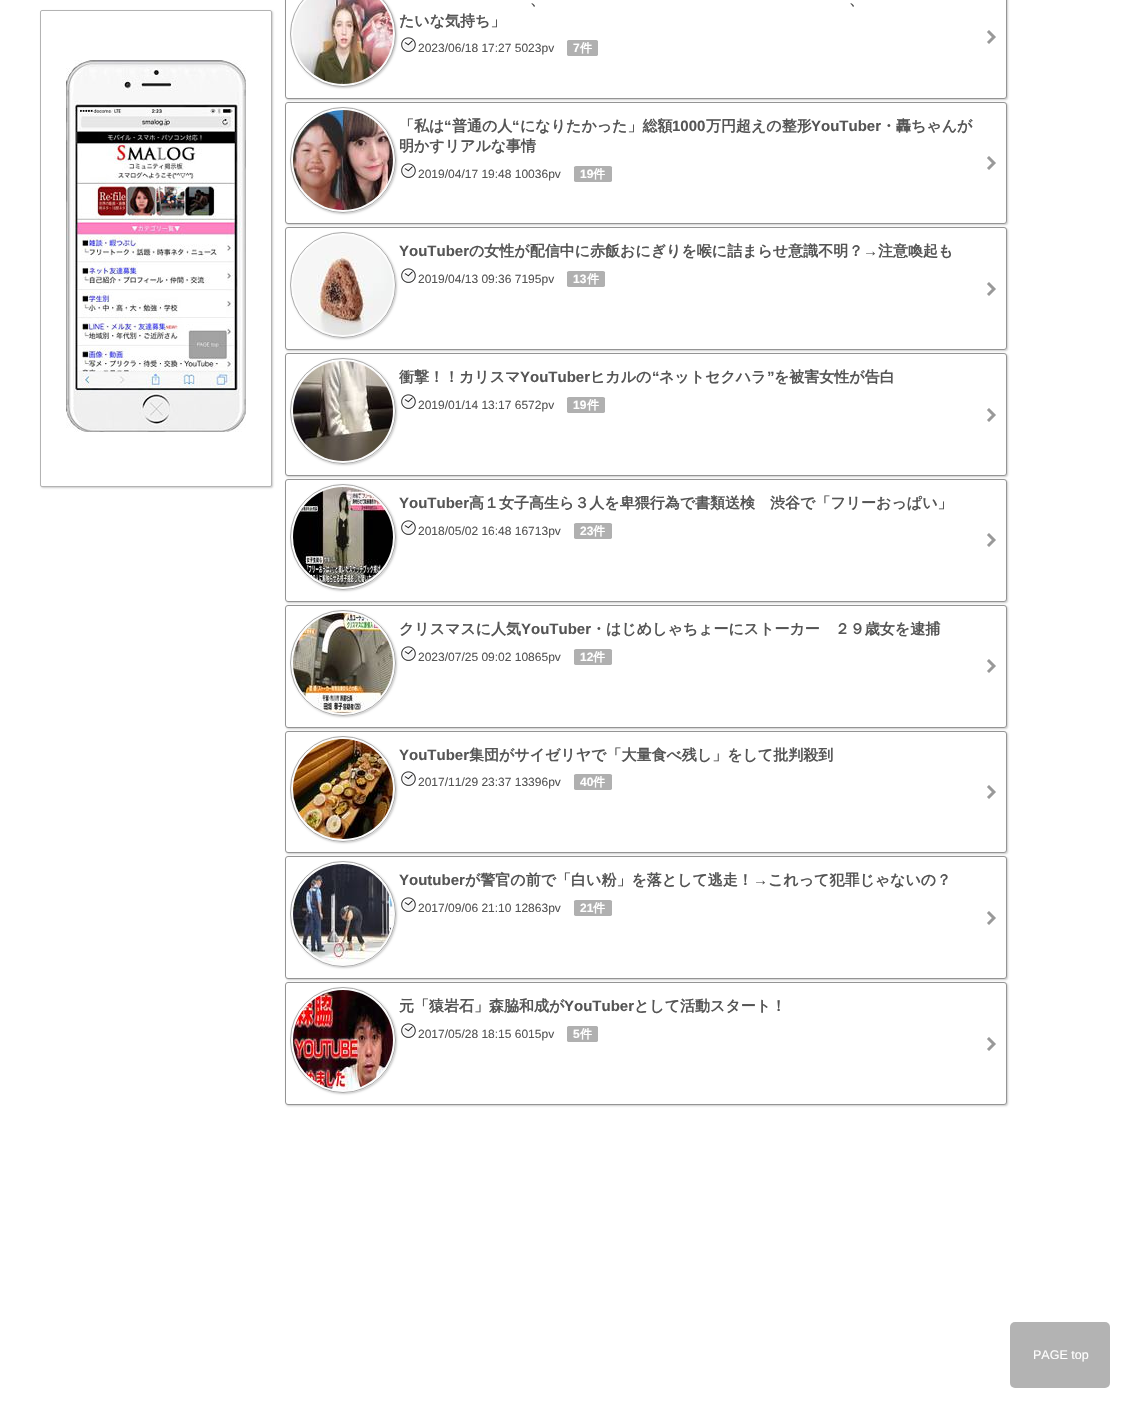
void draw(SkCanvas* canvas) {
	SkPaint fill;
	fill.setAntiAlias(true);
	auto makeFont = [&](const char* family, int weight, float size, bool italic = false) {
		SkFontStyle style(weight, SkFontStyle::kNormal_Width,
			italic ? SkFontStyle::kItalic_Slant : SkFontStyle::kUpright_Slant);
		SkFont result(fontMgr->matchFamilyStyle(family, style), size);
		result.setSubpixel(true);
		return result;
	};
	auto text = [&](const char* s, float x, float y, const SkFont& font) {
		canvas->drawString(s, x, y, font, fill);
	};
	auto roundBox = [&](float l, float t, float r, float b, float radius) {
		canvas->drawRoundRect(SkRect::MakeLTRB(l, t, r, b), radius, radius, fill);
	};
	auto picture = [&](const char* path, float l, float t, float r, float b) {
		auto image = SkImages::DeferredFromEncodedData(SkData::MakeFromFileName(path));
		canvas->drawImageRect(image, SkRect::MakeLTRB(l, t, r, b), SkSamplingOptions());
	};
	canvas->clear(0xFFFFFFFF);
	fill.setColor(0x33000000);
	fill.setMaskFilter(SkMaskFilter::MakeBlur(kNormal_SkBlurStyle, 1));
	canvas->drawRoundRect(SkRect::MakeLTRB(41, 11, 273, 488), 2, 2, fill);
	fill.setMaskFilter(nullptr);
	fill.setColor(0xFFFFFFFF);
	canvas->drawRoundRect(SkRect::MakeLTRB(40.5f, 10.5f, 271.5f, 486.5f), 1.5f, 1.5f, fill);
	fill.setStyle(SkPaint::kStroke_Style);
	fill.setStrokeWidth(1);
	fill.setColor(0xFFB3B3B3);
	canvas->drawRoundRect(SkRect::MakeLTRB(40.5f, 10.5f, 271.5f, 486.5f), 1.5f, 1.5f, fill);
	picture("image0.png", 66, 60, 246, 432);
	fill.setStyle(SkPaint::kFill_Style);
	fill.setColor(0x33000000);
	fill.setMaskFilter(SkMaskFilter::MakeBlur(kNormal_SkBlurStyle, 1));
	canvas->drawRoundRect(SkRect::MakeLTRB(286, -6, 1008, 100), 3, 3, fill);
	fill.setMaskFilter(nullptr);
	fill.setColor(0xFFFFFFFF);
	canvas->drawRoundRect(SkRect::MakeLTRB(285.5f, -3.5f, 1006.5f, 98.5f), 2.5f, 2.5f, fill);
	fill.setStyle(SkPaint::kStroke_Style);
	fill.setColor(0xFF949494);
	canvas->drawRoundRect(SkRect::MakeLTRB(285.5f, -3.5f, 1006.5f, 98.5f), 2.5f, 2.5f, fill);
	picture("image1.png", 987, 30, 996, 44);
	fill.setStyle(SkPaint::kFill_Style);
	fill.setColor(0x33000000);
	fill.setMaskFilter(SkMaskFilter::MakeBlur(kNormal_SkBlurStyle, 1));
	canvas->drawRoundRect(SkRect::MakeLTRB(291, -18, 397, 88), 53, 53, fill);
	fill.setMaskFilter(nullptr);
	fill.setColor(0xFFFCFCFC);
	canvas->drawCircle(343, 34, 52.5f, fill);
	fill.setStyle(SkPaint::kStroke_Style);
	fill.setColor(0xFFAAAAAA);
	canvas->drawCircle(343, 34, 52.5f, fill);
	picture("image2.png", 293, 0, 393, 84);
	picture("image3.png", 401, 37, 416, 52);
	fill.setStyle(SkPaint::kFill_Style);
	fill.setColor(0xFFB0B0B0);
	canvas->drawPath(SkPathBuilder().moveTo(570, 40).lineTo(595, 40).cubicTo(596.5f, 40, 598, 40.5f, 598, 41.5f).lineTo(598, 54.5f).cubicTo(598, 55.5f, 596.5f, 56, 595, 56).lineTo(570, 56).cubicTo(568.5f, 56, 567, 55.5f, 567, 54.5f).lineTo(567, 41.5f).cubicTo(567, 40.5f, 568.5f, 40, 570, 40).close().detach(), fill);
	fill.setStyle(SkPaint::kStroke_Style);
	canvas->drawPath(SkPathBuilder().moveTo(570, 40.5f).lineTo(595, 40.5f).cubicTo(596.5f, 40.5f, 597.5f, 41, 597.5f, 41.5f).lineTo(597.5f, 54.5f).cubicTo(597.5f, 55, 596.5f, 55.5f, 595, 55.5f).lineTo(570, 55.5f).cubicTo(568.5f, 55.5f, 567.5f, 55, 567.5f, 54.5f).lineTo(567.5f, 41.5f).cubicTo(567.5f, 41, 568.5f, 40.5f, 570, 40.5f).close().detach(), fill);
	fill.setStyle(SkPaint::kFill_Style);
	fill.setColor(0x33000000);
	fill.setMaskFilter(SkMaskFilter::MakeBlur(kNormal_SkBlurStyle, 1));
	canvas->drawRoundRect(SkRect::MakeLTRB(286, 103, 1008, 225), 3, 3, fill);
	fill.setMaskFilter(nullptr);
	fill.setColor(0xFFFFFFFF);
	canvas->drawRoundRect(SkRect::MakeLTRB(285.5f, 102.5f, 1006.5f, 223.5f), 2.5f, 2.5f, fill);
	fill.setStyle(SkPaint::kStroke_Style);
	fill.setColor(0xFF949494);
	canvas->drawRoundRect(SkRect::MakeLTRB(285.5f, 102.5f, 1006.5f, 223.5f), 2.5f, 2.5f, fill);
	picture("image1.png", 987, 156, 996, 170);
	fill.setStyle(SkPaint::kFill_Style);
	fill.setColor(0x33000000);
	fill.setMaskFilter(SkMaskFilter::MakeBlur(kNormal_SkBlurStyle, 1));
	canvas->drawRoundRect(SkRect::MakeLTRB(291, 108, 397, 214), 53, 53, fill);
	fill.setMaskFilter(nullptr);
	fill.setColor(0xFFFCFCFC);
	canvas->drawCircle(343, 160, 53, fill);
	fill.setColor(0xFFFFFFFF);
	canvas->drawPath(SkPathBuilder().moveTo(343, 109).cubicTo(372, 109, 395, 132, 395, 160).cubicTo(395, 150, 392, 140, 386, 131).cubicTo(358, 89, 291, 109, 291, 160).cubicTo(291, 132, 314, 109, 343, 109).close().detach(), fill);
	fill.setStyle(SkPaint::kStroke_Style);
	fill.setColor(0xFFAAAAAA);
	canvas->drawCircle(343, 160, 52.5f, fill);
	picture("image4.png", 293, 110, 393, 210);
	picture("image3.png", 401, 163, 416, 178);
	fill.setStyle(SkPaint::kFill_Style);
	fill.setColor(0xFFB0B0B0);
	canvas->drawPath(SkPathBuilder().moveTo(578, 166).lineTo(608, 166).cubicTo(610.5f, 166, 612, 166.5f, 612, 167.5f).lineTo(612, 180.5f).cubicTo(612, 181.5f, 610.5f, 182, 608, 182).lineTo(578, 182).cubicTo(575.5f, 182, 574, 181.5f, 574, 180.5f).lineTo(574, 167.5f).cubicTo(574, 166.5f, 575.5f, 166, 578, 166).close().detach(), fill);
	fill.setStyle(SkPaint::kStroke_Style);
	canvas->drawPath(SkPathBuilder().moveTo(578, 166.5f).lineTo(608, 166.5f).cubicTo(610, 166.5f, 611.5f, 167, 611.5f, 167.5f).lineTo(611.5f, 180.5f).cubicTo(611.5f, 181, 610, 181.5f, 608, 181.5f).lineTo(578, 181.5f).cubicTo(576, 181.5f, 574.5f, 181, 574.5f, 180.5f).lineTo(574.5f, 167.5f).cubicTo(574.5f, 167, 576, 166.5f, 578, 166.5f).close().detach(), fill);
	fill.setStyle(SkPaint::kFill_Style);
	fill.setColor(0x33000000);
	fill.setMaskFilter(SkMaskFilter::MakeBlur(kNormal_SkBlurStyle, 1));
	canvas->drawRoundRect(SkRect::MakeLTRB(286, 228, 1008, 351), 3, 3, fill);
	fill.setMaskFilter(nullptr);
	fill.setColor(0xFFFFFFFF);
	canvas->drawRoundRect(SkRect::MakeLTRB(285.5f, 227.5f, 1006.5f, 349.5f), 2.5f, 2.5f, fill);
	fill.setStyle(SkPaint::kStroke_Style);
	fill.setColor(0xFF949494);
	canvas->drawRoundRect(SkRect::MakeLTRB(285.5f, 227.5f, 1006.5f, 349.5f), 2.5f, 2.5f, fill);
	picture("image1.png", 987, 282, 996, 296);
	fill.setStyle(SkPaint::kFill_Style);
	fill.setColor(0x33000000);
	fill.setMaskFilter(SkMaskFilter::MakeBlur(kNormal_SkBlurStyle, 1));
	canvas->drawRoundRect(SkRect::MakeLTRB(291, 233, 397, 339), 53, 53, fill);
	fill.setMaskFilter(nullptr);
	fill.setColor(0xFFFCFCFC);
	canvas->drawCircle(343, 285, 53, fill);
	fill.setColor(0xFFFFFFFF);
	canvas->drawPath(SkPathBuilder().moveTo(343, 234).cubicTo(372, 234, 395, 257, 395, 285).cubicTo(395, 275, 392, 265, 386, 256).cubicTo(358, 214, 291, 234, 291, 285).cubicTo(291, 257, 314, 234, 343, 234).close().detach(), fill);
	fill.setStyle(SkPaint::kStroke_Style);
	fill.setColor(0xFFAAAAAA);
	canvas->drawCircle(343, 285, 52.5f, fill);
	picture("image5.png", 293, 235, 393, 335);
	picture("image3.png", 401, 268, 416, 283);
	fill.setStyle(SkPaint::kFill_Style);
	fill.setColor(0xFFB0B0B0);
	canvas->drawPath(SkPathBuilder().moveTo(571, 271).lineTo(601, 271).cubicTo(603.5f, 271, 605, 271.5f, 605, 272.5f).lineTo(605, 285.5f).cubicTo(605, 286.5f, 603.5f, 287, 601, 287).lineTo(571, 287).cubicTo(568.5f, 287, 567, 286.5f, 567, 285.5f).lineTo(567, 272.5f).cubicTo(567, 271.5f, 568.5f, 271, 571, 271).close().detach(), fill);
	fill.setStyle(SkPaint::kStroke_Style);
	canvas->drawPath(SkPathBuilder().moveTo(571, 271.5f).lineTo(601, 271.5f).cubicTo(603, 271.5f, 604.5f, 272, 604.5f, 272.5f).lineTo(604.5f, 285.5f).cubicTo(604.5f, 286, 603, 286.5f, 601, 286.5f).lineTo(571, 286.5f).cubicTo(569, 286.5f, 567.5f, 286, 567.5f, 285.5f).lineTo(567.5f, 272.5f).cubicTo(567.5f, 272, 569, 271.5f, 571, 271.5f).close().detach(), fill);
	fill.setStyle(SkPaint::kFill_Style);
	fill.setColor(0x33000000);
	fill.setMaskFilter(SkMaskFilter::MakeBlur(kNormal_SkBlurStyle, 1));
	canvas->drawRoundRect(SkRect::MakeLTRB(286, 354, 1008, 477), 3, 3, fill);
	fill.setMaskFilter(nullptr);
	fill.setColor(0xFFFFFFFF);
	canvas->drawRoundRect(SkRect::MakeLTRB(285.5f, 353.5f, 1006.5f, 475.5f), 2.5f, 2.5f, fill);
	fill.setStyle(SkPaint::kStroke_Style);
	fill.setColor(0xFF949494);
	canvas->drawRoundRect(SkRect::MakeLTRB(285.5f, 353.5f, 1006.5f, 475.5f), 2.5f, 2.5f, fill);
	picture("image1.png", 987, 408, 996, 422);
	fill.setStyle(SkPaint::kFill_Style);
	fill.setColor(0x33000000);
	fill.setMaskFilter(SkMaskFilter::MakeBlur(kNormal_SkBlurStyle, 1));
	canvas->drawRoundRect(SkRect::MakeLTRB(291, 359, 397, 465), 53, 53, fill);
	fill.setMaskFilter(nullptr);
	fill.setColor(0xFFFCFCFC);
	canvas->drawCircle(343, 411, 53, fill);
	fill.setColor(0xFFFFFFFF);
	canvas->drawPath(SkPathBuilder().moveTo(343, 360).cubicTo(372, 360, 395, 383, 395, 411).cubicTo(395, 401, 392, 391, 386, 382).cubicTo(358, 340, 291, 360, 291, 411).cubicTo(291, 383, 314, 360, 343, 360).close().detach(), fill);
	fill.setStyle(SkPaint::kStroke_Style);
	fill.setColor(0xFFAAAAAA);
	canvas->drawCircle(343, 411, 52.5f, fill);
	picture("image6.png", 293, 361, 393, 461);
	picture("image3.png", 401, 394, 416, 409);
	fill.setStyle(SkPaint::kFill_Style);
	fill.setColor(0xFFB0B0B0);
	canvas->drawPath(SkPathBuilder().moveTo(571, 397).lineTo(601, 397).cubicTo(603.5f, 397, 605, 397.5f, 605, 398.5f).lineTo(605, 411.5f).cubicTo(605, 412.5f, 603.5f, 413, 601, 413).lineTo(571, 413).cubicTo(568.5f, 413, 567, 412.5f, 567, 411.5f).lineTo(567, 398.5f).cubicTo(567, 397.5f, 568.5f, 397, 571, 397).close().detach(), fill);
	fill.setStyle(SkPaint::kStroke_Style);
	canvas->drawPath(SkPathBuilder().moveTo(571, 397.5f).lineTo(601, 397.5f).cubicTo(603, 397.5f, 604.5f, 398, 604.5f, 398.5f).lineTo(604.5f, 411.5f).cubicTo(604.5f, 412, 603, 412.5f, 601, 412.5f).lineTo(571, 412.5f).cubicTo(569, 412.5f, 567.5f, 412, 567.5f, 411.5f).lineTo(567.5f, 398.5f).cubicTo(567.5f, 398, 569, 397.5f, 571, 397.5f).close().detach(), fill);
	fill.setStyle(SkPaint::kFill_Style);
	fill.setColor(0x33000000);
	fill.setMaskFilter(SkMaskFilter::MakeBlur(kNormal_SkBlurStyle, 1));
	canvas->drawRoundRect(SkRect::MakeLTRB(286, 480, 1008, 603), 3, 3, fill);
	fill.setMaskFilter(nullptr);
	fill.setColor(0xFFFFFFFF);
	canvas->drawRoundRect(SkRect::MakeLTRB(285.5f, 479.5f, 1006.5f, 601.5f), 2.5f, 2.5f, fill);
	fill.setStyle(SkPaint::kStroke_Style);
	fill.setColor(0xFF949494);
	canvas->drawRoundRect(SkRect::MakeLTRB(285.5f, 479.5f, 1006.5f, 601.5f), 2.5f, 2.5f, fill);
	picture("image1.png", 987, 533, 996, 547);
	fill.setStyle(SkPaint::kFill_Style);
	fill.setColor(0x33000000);
	fill.setMaskFilter(SkMaskFilter::MakeBlur(kNormal_SkBlurStyle, 1));
	canvas->drawRoundRect(SkRect::MakeLTRB(291, 485, 397, 591), 53, 53, fill);
	fill.setMaskFilter(nullptr);
	fill.setColor(0xFFFCFCFC);
	canvas->drawCircle(343, 537, 53, fill);
	fill.setColor(0xFFFFFFFF);
	canvas->drawPath(SkPathBuilder().moveTo(343, 486).cubicTo(372, 486, 395, 509, 395, 537).cubicTo(395, 527, 392, 517, 386, 508).cubicTo(358, 466, 291, 486, 291, 537).cubicTo(291, 509, 314, 486, 343, 486).close().detach(), fill);
	fill.setStyle(SkPaint::kStroke_Style);
	fill.setColor(0xFFAAAAAA);
	canvas->drawCircle(343, 537, 52.5f, fill);
	picture("image7.png", 293, 487, 393, 587);
	picture("image3.png", 401, 520, 416, 535);
	fill.setStyle(SkPaint::kFill_Style);
	fill.setColor(0xFFB0B0B0);
	canvas->drawPath(SkPathBuilder().moveTo(578, 523).lineTo(608, 523).cubicTo(610.5f, 523, 612, 523.5f, 612, 524.5f).lineTo(612, 537.5f).cubicTo(612, 538.5f, 610.5f, 539, 608, 539).lineTo(578, 539).cubicTo(575.5f, 539, 574, 538.5f, 574, 537.5f).lineTo(574, 524.5f).cubicTo(574, 523.5f, 575.5f, 523, 578, 523).close().detach(), fill);
	fill.setStyle(SkPaint::kStroke_Style);
	canvas->drawPath(SkPathBuilder().moveTo(578, 523.5f).lineTo(608, 523.5f).cubicTo(610, 523.5f, 611.5f, 524, 611.5f, 524.5f).lineTo(611.5f, 537.5f).cubicTo(611.5f, 538, 610, 538.5f, 608, 538.5f).lineTo(578, 538.5f).cubicTo(576, 538.5f, 574.5f, 538, 574.5f, 537.5f).lineTo(574.5f, 524.5f).cubicTo(574.5f, 524, 576, 523.5f, 578, 523.5f).close().detach(), fill);
	fill.setStyle(SkPaint::kFill_Style);
	fill.setColor(0x33000000);
	fill.setMaskFilter(SkMaskFilter::MakeBlur(kNormal_SkBlurStyle, 1));
	canvas->drawRoundRect(SkRect::MakeLTRB(286, 606, 1008, 729), 3, 3, fill);
	fill.setMaskFilter(nullptr);
	fill.setColor(0xFFFFFFFF);
	canvas->drawRoundRect(SkRect::MakeLTRB(285.5f, 605.5f, 1006.5f, 727.5f), 2.5f, 2.5f, fill);
	fill.setStyle(SkPaint::kStroke_Style);
	fill.setColor(0xFF949494);
	canvas->drawRoundRect(SkRect::MakeLTRB(285.5f, 605.5f, 1006.5f, 727.5f), 2.5f, 2.5f, fill);
	picture("image1.png", 987, 659, 996, 673);
	fill.setStyle(SkPaint::kFill_Style);
	fill.setColor(0x33000000);
	fill.setMaskFilter(SkMaskFilter::MakeBlur(kNormal_SkBlurStyle, 1));
	canvas->drawRoundRect(SkRect::MakeLTRB(291, 611, 397, 717), 53, 53, fill);
	fill.setMaskFilter(nullptr);
	fill.setColor(0xFFFCFCFC);
	canvas->drawCircle(343, 663, 53, fill);
	fill.setColor(0xFFFFFFFF);
	canvas->drawPath(SkPathBuilder().moveTo(343, 612).cubicTo(372, 612, 395, 635, 395, 663).cubicTo(395, 653, 392, 643, 386, 634).cubicTo(358, 592, 291, 612, 291, 663).cubicTo(291, 635, 314, 612, 343, 612).close().detach(), fill);
	fill.setStyle(SkPaint::kStroke_Style);
	fill.setColor(0xFFAAAAAA);
	canvas->drawCircle(343, 663, 52.5f, fill);
	picture("image8.png", 293, 613, 393, 713);
	picture("image3.png", 401, 646, 416, 661);
	fill.setStyle(SkPaint::kFill_Style);
	fill.setColor(0xFFB0B0B0);
	canvas->drawPath(SkPathBuilder().moveTo(578, 649).lineTo(608, 649).cubicTo(610.5f, 649, 612, 649.5f, 612, 650.5f).lineTo(612, 663.5f).cubicTo(612, 664.5f, 610.5f, 665, 608, 665).lineTo(578, 665).cubicTo(575.5f, 665, 574, 664.5f, 574, 663.5f).lineTo(574, 650.5f).cubicTo(574, 649.5f, 575.5f, 649, 578, 649).close().detach(), fill);
	fill.setStyle(SkPaint::kStroke_Style);
	canvas->drawPath(SkPathBuilder().moveTo(578, 649.5f).lineTo(608, 649.5f).cubicTo(610, 649.5f, 611.5f, 650, 611.5f, 650.5f).lineTo(611.5f, 663.5f).cubicTo(611.5f, 664, 610, 664.5f, 608, 664.5f).lineTo(578, 664.5f).cubicTo(576, 664.5f, 574.5f, 664, 574.5f, 663.5f).lineTo(574.5f, 650.5f).cubicTo(574.5f, 650, 576, 649.5f, 578, 649.5f).close().detach(), fill);
	fill.setStyle(SkPaint::kFill_Style);
	fill.setColor(0x33000000);
	fill.setMaskFilter(SkMaskFilter::MakeBlur(kNormal_SkBlurStyle, 1));
	canvas->drawRoundRect(SkRect::MakeLTRB(286, 732, 1008, 854), 3, 3, fill);
	fill.setMaskFilter(nullptr);
	fill.setColor(0xFFFFFFFF);
	canvas->drawRoundRect(SkRect::MakeLTRB(285.5f, 731.5f, 1006.5f, 852.5f), 2.5f, 2.5f, fill);
	fill.setStyle(SkPaint::kStroke_Style);
	fill.setColor(0xFF949494);
	canvas->drawRoundRect(SkRect::MakeLTRB(285.5f, 731.5f, 1006.5f, 852.5f), 2.5f, 2.5f, fill);
	picture("image1.png", 987, 785, 996, 799);
	fill.setStyle(SkPaint::kFill_Style);
	fill.setColor(0x33000000);
	fill.setMaskFilter(SkMaskFilter::MakeBlur(kNormal_SkBlurStyle, 1));
	canvas->drawRoundRect(SkRect::MakeLTRB(291, 737, 397, 843), 53, 53, fill);
	fill.setMaskFilter(nullptr);
	fill.setColor(0xFFFCFCFC);
	canvas->drawCircle(343, 789, 53, fill);
	fill.setColor(0xFFFFFFFF);
	canvas->drawPath(SkPathBuilder().moveTo(343, 738).cubicTo(372, 738, 395, 761, 395, 789).cubicTo(395, 779, 392, 769, 386, 760).cubicTo(358, 718, 291, 738, 291, 789).cubicTo(291, 761, 314, 738, 343, 738).close().detach(), fill);
	fill.setStyle(SkPaint::kStroke_Style);
	fill.setColor(0xFFAAAAAA);
	canvas->drawCircle(343, 789, 52.5f, fill);
	picture("image9.png", 293, 739, 393, 839);
	picture("image3.png", 401, 771, 416, 786);
	fill.setStyle(SkPaint::kFill_Style);
	fill.setColor(0xFFB0B0B0);
	canvas->drawPath(SkPathBuilder().moveTo(578, 774).lineTo(608, 774).cubicTo(610.5f, 774, 612, 774.5f, 612, 775.5f).lineTo(612, 788.5f).cubicTo(612, 789.5f, 610.5f, 790, 608, 790).lineTo(578, 790).cubicTo(575.5f, 790, 574, 789.5f, 574, 788.5f).lineTo(574, 775.5f).cubicTo(574, 774.5f, 575.5f, 774, 578, 774).close().detach(), fill);
	fill.setStyle(SkPaint::kStroke_Style);
	canvas->drawPath(SkPathBuilder().moveTo(578, 774.5f).lineTo(608, 774.5f).cubicTo(610, 774.5f, 611.5f, 775, 611.5f, 775.5f).lineTo(611.5f, 788.5f).cubicTo(611.5f, 789, 610, 789.5f, 608, 789.5f).lineTo(578, 789.5f).cubicTo(576, 789.5f, 574.5f, 789, 574.5f, 788.5f).lineTo(574.5f, 775.5f).cubicTo(574.5f, 775, 576, 774.5f, 578, 774.5f).close().detach(), fill);
	fill.setStyle(SkPaint::kFill_Style);
	fill.setColor(0x33000000);
	fill.setMaskFilter(SkMaskFilter::MakeBlur(kNormal_SkBlurStyle, 1));
	canvas->drawRoundRect(SkRect::MakeLTRB(286, 857, 1008, 980), 3, 3, fill);
	fill.setMaskFilter(nullptr);
	fill.setColor(0xFFFFFFFF);
	canvas->drawRoundRect(SkRect::MakeLTRB(285.5f, 856.5f, 1006.5f, 978.5f), 2.5f, 2.5f, fill);
	fill.setStyle(SkPaint::kStroke_Style);
	fill.setColor(0xFF949494);
	canvas->drawRoundRect(SkRect::MakeLTRB(285.5f, 856.5f, 1006.5f, 978.5f), 2.5f, 2.5f, fill);
	picture("image1.png", 987, 911, 996, 925);
	fill.setStyle(SkPaint::kFill_Style);
	fill.setColor(0x33000000);
	fill.setMaskFilter(SkMaskFilter::MakeBlur(kNormal_SkBlurStyle, 1));
	canvas->drawRoundRect(SkRect::MakeLTRB(291, 862, 397, 968), 53, 53, fill);
	fill.setMaskFilter(nullptr);
	fill.setColor(0xFFFCFCFC);
	canvas->drawCircle(343, 914, 53, fill);
	fill.setColor(0xFFFFFFFF);
	canvas->drawPath(SkPathBuilder().moveTo(343, 863).cubicTo(372, 863, 395, 886, 395, 914).cubicTo(395, 904, 392, 894, 386, 885).cubicTo(358, 843, 291, 863, 291, 914).cubicTo(291, 886, 314, 863, 343, 863).close().detach(), fill);
	fill.setStyle(SkPaint::kStroke_Style);
	fill.setColor(0xFFAAAAAA);
	canvas->drawCircle(343, 914, 52.5f, fill);
	picture("image10.png", 293, 864, 393, 962);
	picture("image3.png", 401, 897, 416, 912);
	fill.setStyle(SkPaint::kFill_Style);
	fill.setColor(0xFFB0B0B0);
	canvas->drawPath(SkPathBuilder().moveTo(578, 900).lineTo(608, 900).cubicTo(610.5f, 900, 612, 900.5f, 612, 901.5f).lineTo(612, 914.5f).cubicTo(612, 915.5f, 610.5f, 916, 608, 916).lineTo(578, 916).cubicTo(575.5f, 916, 574, 915.5f, 574, 914.5f).lineTo(574, 901.5f).cubicTo(574, 900.5f, 575.5f, 900, 578, 900).close().detach(), fill);
	fill.setStyle(SkPaint::kStroke_Style);
	canvas->drawPath(SkPathBuilder().moveTo(578, 900.5f).lineTo(608, 900.5f).cubicTo(610, 900.5f, 611.5f, 901, 611.5f, 901.5f).lineTo(611.5f, 914.5f).cubicTo(611.5f, 915, 610, 915.5f, 608, 915.5f).lineTo(578, 915.5f).cubicTo(576, 915.5f, 574.5f, 915, 574.5f, 914.5f).lineTo(574.5f, 901.5f).cubicTo(574.5f, 901, 576, 900.5f, 578, 900.5f).close().detach(), fill);
	fill.setStyle(SkPaint::kFill_Style);
	fill.setColor(0x33000000);
	fill.setMaskFilter(SkMaskFilter::MakeBlur(kNormal_SkBlurStyle, 1));
	canvas->drawRoundRect(SkRect::MakeLTRB(286, 983, 1008, 1106), 3, 3, fill);
	fill.setMaskFilter(nullptr);
	fill.setColor(0xFFFFFFFF);
	canvas->drawRoundRect(SkRect::MakeLTRB(285.5f, 982.5f, 1006.5f, 1104.5f), 2.5f, 2.5f, fill);
	fill.setStyle(SkPaint::kStroke_Style);
	fill.setColor(0xFF949494);
	canvas->drawRoundRect(SkRect::MakeLTRB(285.5f, 982.5f, 1006.5f, 1104.5f), 2.5f, 2.5f, fill);
	picture("image1.png", 987, 1037, 996, 1051);
	fill.setStyle(SkPaint::kFill_Style);
	fill.setColor(0x33000000);
	fill.setMaskFilter(SkMaskFilter::MakeBlur(kNormal_SkBlurStyle, 1));
	canvas->drawRoundRect(SkRect::MakeLTRB(291, 988, 397, 1094), 53, 53, fill);
	fill.setMaskFilter(nullptr);
	fill.setColor(0xFFFCFCFC);
	canvas->drawCircle(343, 1040, 53, fill);
	fill.setColor(0xFFFFFFFF);
	canvas->drawPath(SkPathBuilder().moveTo(343, 989).cubicTo(372, 989, 395, 1012, 395, 1040).cubicTo(395, 1030, 392, 1020, 386, 1011).cubicTo(358, 969, 291, 989, 291, 1040).cubicTo(291, 1012, 314, 989, 343, 989).close().detach(), fill);
	fill.setStyle(SkPaint::kStroke_Style);
	fill.setColor(0xFFAAAAAA);
	canvas->drawCircle(343, 1040, 52.5f, fill);
	picture("image11.png", 293, 990, 393, 1090);
	picture("image3.png", 401, 1023, 416, 1038);
	fill.setStyle(SkPaint::kFill_Style);
	fill.setColor(0xFFB0B0B0);
	canvas->drawPath(SkPathBuilder().moveTo(570, 1026).lineTo(595, 1026).cubicTo(596.5f, 1026, 598, 1026.5f, 598, 1027.5f).lineTo(598, 1040.5f).cubicTo(598, 1041.5f, 596.5f, 1042, 595, 1042).lineTo(570, 1042).cubicTo(568.5f, 1042, 567, 1041.5f, 567, 1040.5f).lineTo(567, 1027.5f).cubicTo(567, 1026.5f, 568.5f, 1026, 570, 1026).close().detach(), fill);
	fill.setStyle(SkPaint::kStroke_Style);
	canvas->drawPath(SkPathBuilder().moveTo(570, 1026.5f).lineTo(595, 1026.5f).cubicTo(596.5f, 1026.5f, 597.5f, 1027, 597.5f, 1027.5f).lineTo(597.5f, 1040.5f).cubicTo(597.5f, 1041, 596.5f, 1041.5f, 595, 1041.5f).lineTo(570, 1041.5f).cubicTo(568.5f, 1041.5f, 567.5f, 1041, 567.5f, 1040.5f).lineTo(567.5f, 1027.5f).cubicTo(567.5f, 1027, 568.5f, 1026.5f, 570, 1026.5f).close().detach(), fill);
	fill.setStyle(SkPaint::kFill_Style);
	fill.setColor(0xFFB3B3B3);
	roundBox(1010, 1322, 1110, 1388, 5);
	auto font1 = makeFont("WenQuanYi Zen Hei", 700, 15);
	fill.setColor(0xFF555555);
	text("、", 530, 5, font1);
	text("、", 849, 5, font1);
	text("たいな気持ち」", 399, 26, font1);
	auto font2 = makeFont("Liberation Sans", 400, 12);
	text("2023/06/18 17:27 5023pv", 418, 52, font2);
	auto font3 = makeFont("Liberation Sans", 700, 12);
	fill.setColor(0xFFFFFFFF);
	text("7", 573, 52, font3);
	auto font4 = makeFont("WenQuanYi Zen Hei", 700, 12);
	text("件", 580, 52, font4);
	fill.setColor(0xFF555555);
	text("「私は", 399, 131, font1);
	auto font5 = makeFont("Liberation Sans", 700, 15);
	text("“", 444, 131, font5);
	text("普通の人", 452, 131, font1);
	text("“", 512, 131, font5);
	text("になりたかった」総額", 520, 131, font1);
	text("1000", 672, 131, font5);
	text("万円超えの整形", 706, 131, font1);
	text("YouTuber", 811, 131, font5);
	text("・轟ちゃんが", 881, 131, font1);
	text("明かすリアルな事情", 399, 151, font1);
	text("2019/04/17 19:48 10036pv", 418, 178, font2);
	fill.setColor(0xFFFFFFFF);
	text("19", 580, 178, font3);
	text("件", 593, 178, font4);
	fill.setColor(0xFF555555);
	text("YouTuber", 399, 256, font5);
	text("の女性が配信中に赤飯おにぎりを喉に詰まらせ意識不明？", 469, 256, font1);
	text("→", 863, 256, font5);
	text("注意喚起も", 878, 256, font1);
	text("2019/04/13 09:36 7195pv", 418, 283, font2);
	fill.setColor(0xFFFFFFFF);
	text("13", 573, 283, font3);
	text("件", 587, 283, font4);
	fill.setColor(0xFF555555);
	text("衝撃！！カリスマ", 399, 382, font1);
	text("YouTuber", 520, 382, font5);
	text("ヒカルの", 590, 382, font1);
	text("“", 652, 382, font5);
	text("ネットセクハラ", 659, 382, font1);
	text("”", 767, 382, font5);
	text("を被害女性が告白", 774, 382, font1);
	text("2019/01/14 13:17 6572pv", 418, 409, font2);
	fill.setColor(0xFFFFFFFF);
	text("19", 573, 409, font3);
	text("件", 587, 409, font4);
	fill.setColor(0xFF555555);
	text("YouTuber", 399, 508, font5);
	text("高１女子高生ら３人を卑猥行為で書類送検　渋谷で「フリーおっぱい」", 469, 508, font1);
	text("2018/05/02 16:48 16713pv", 418, 535, font2);
	fill.setColor(0xFFFFFFFF);
	text("23", 580, 535, font3);
	text("件", 593, 535, font4);
	fill.setColor(0xFF555555);
	text("クリスマスに人気", 399, 634, font1);
	text("YouTuber", 521, 634, font5);
	text("・はじめしゃちょーにストーカー　２９歳女を逮捕", 591, 634, font1);
	text("2023/07/25 09:02 10865pv", 418, 661, font2);
	fill.setColor(0xFFFFFFFF);
	text("12", 580, 661, font3);
	text("件", 593, 661, font4);
	fill.setColor(0xFF555555);
	text("YouTuber", 399, 760, font5);
	text("集団がサイゼリヤで「大量食べ残し」をして批判殺到", 469, 760, font1);
	text("2017/11/29 23:37 13396pv", 418, 786, font2);
	fill.setColor(0xFFFFFFFF);
	text("40", 580, 786, font3);
	text("件", 593, 786, font4);
	fill.setColor(0xFF555555);
	text("Youtuber", 399, 885, font5);
	text("が警官の前で「白い粉」を落として逃走！", 465, 885, font1);
	text("→", 753, 885, font5);
	text("これって犯罪じゃないの？", 768, 885, font1);
	text("2017/09/06 21:10 12863pv", 418, 912, font2);
	fill.setColor(0xFFFFFFFF);
	text("21", 580, 912, font3);
	text("件", 593, 912, font4);
	fill.setColor(0xFF555555);
	text("元「猿岩石」森脇和成が", 399, 1011, font1);
	text("YouTuber", 564, 1011, font5);
	text("として活動スタート！", 634, 1011, font1);
	text("2017/05/28 18:15 6015pv", 418, 1038, font2);
	fill.setColor(0xFFFFFFFF);
	text("5", 573, 1038, font3);
	text("件", 580, 1038, font4);
	auto font6 = makeFont("Liberation Sans", 400, 12.5f);
	text("PAGE top", 1033, 1359, font6);
}
